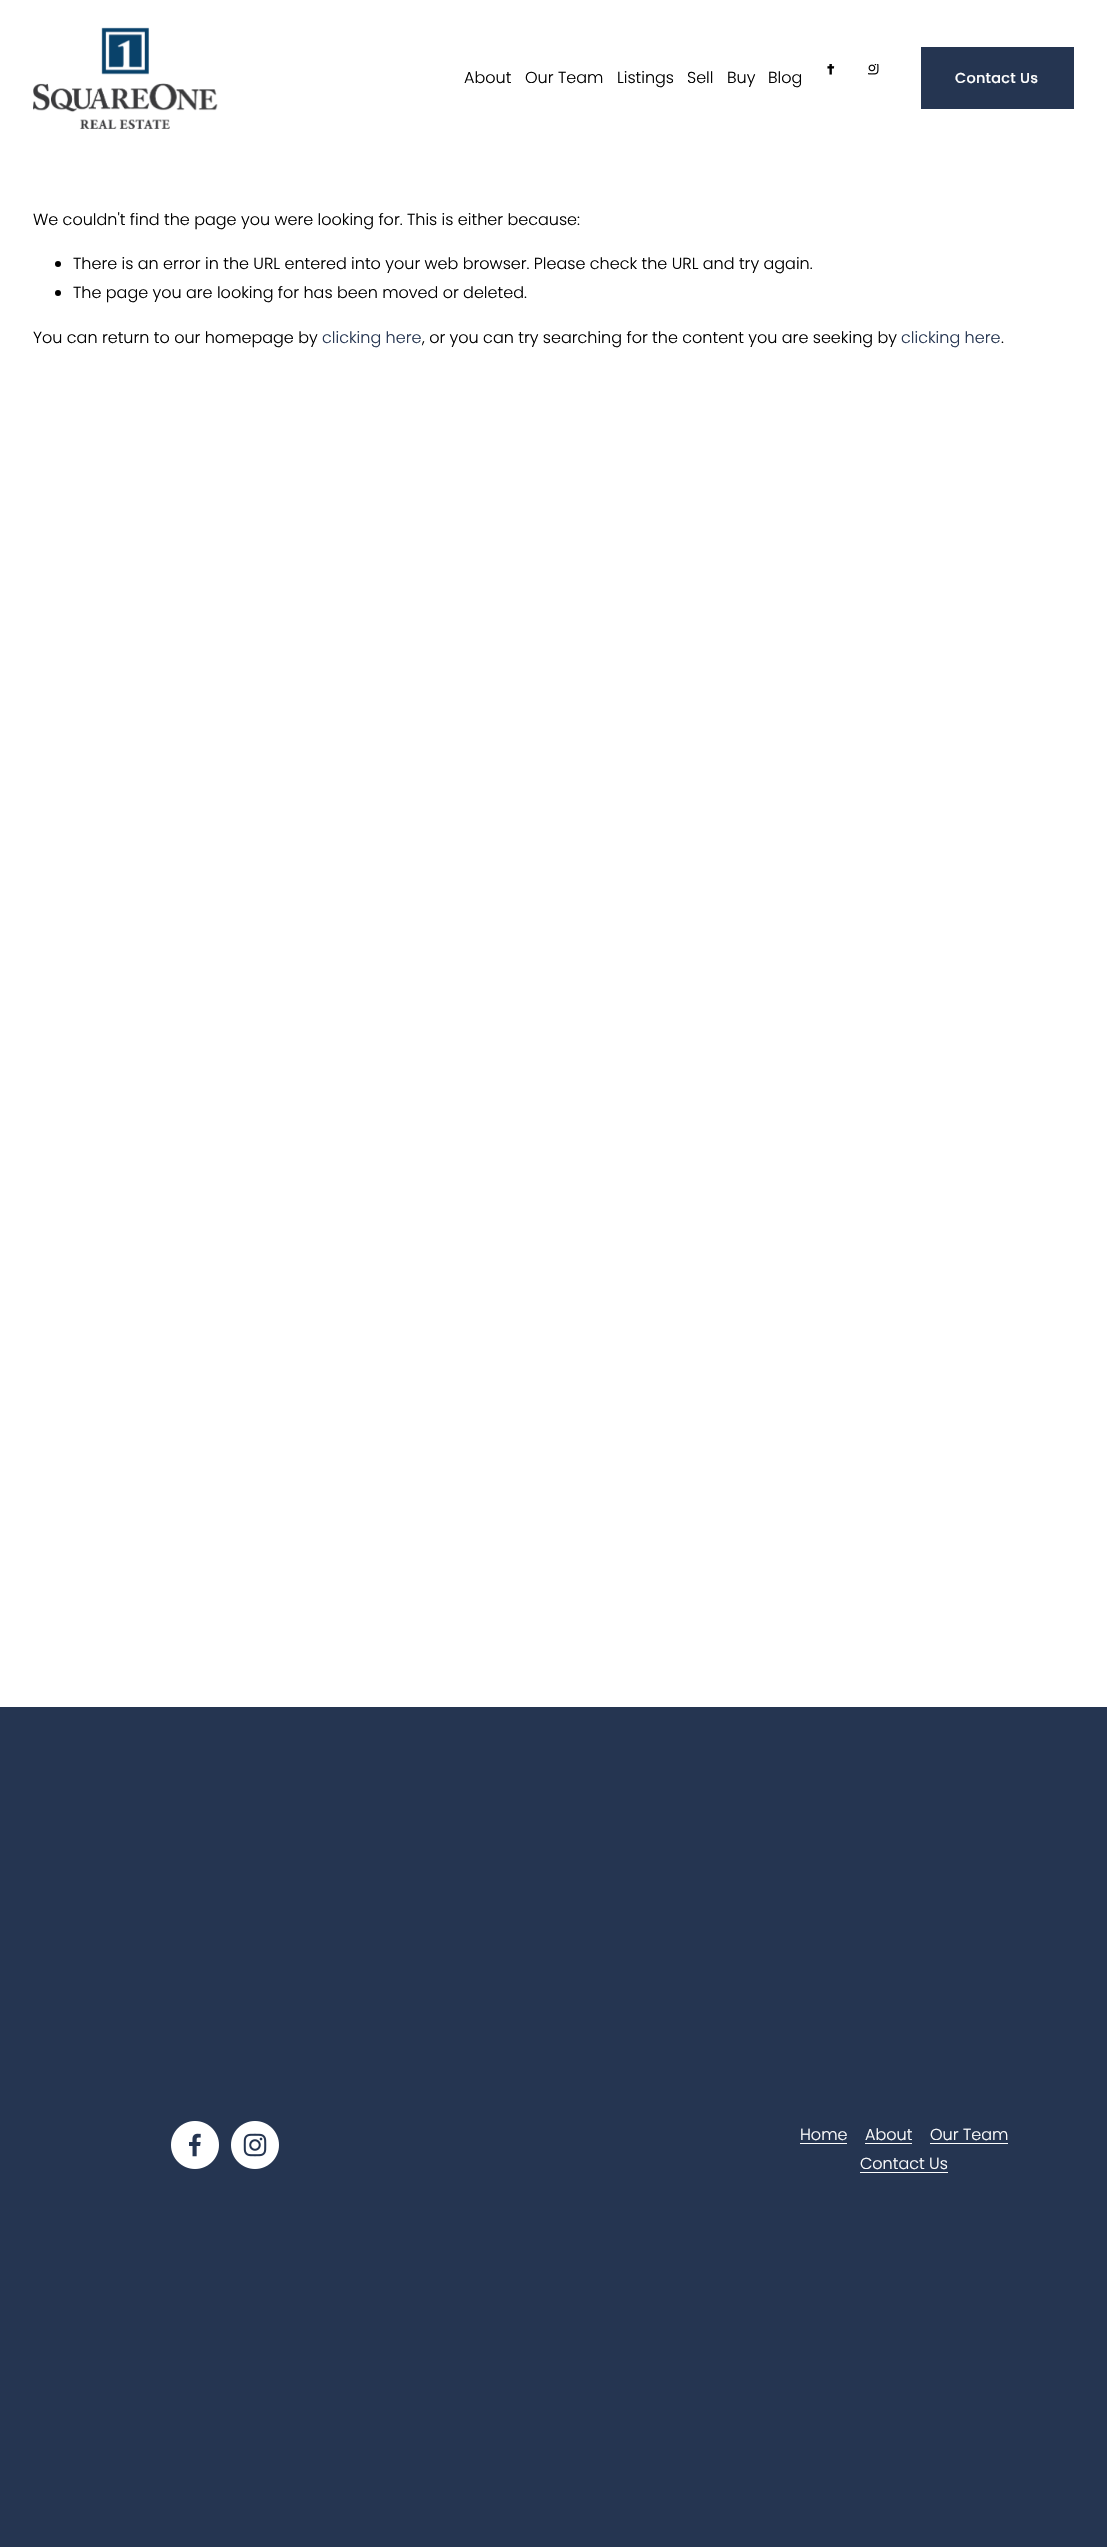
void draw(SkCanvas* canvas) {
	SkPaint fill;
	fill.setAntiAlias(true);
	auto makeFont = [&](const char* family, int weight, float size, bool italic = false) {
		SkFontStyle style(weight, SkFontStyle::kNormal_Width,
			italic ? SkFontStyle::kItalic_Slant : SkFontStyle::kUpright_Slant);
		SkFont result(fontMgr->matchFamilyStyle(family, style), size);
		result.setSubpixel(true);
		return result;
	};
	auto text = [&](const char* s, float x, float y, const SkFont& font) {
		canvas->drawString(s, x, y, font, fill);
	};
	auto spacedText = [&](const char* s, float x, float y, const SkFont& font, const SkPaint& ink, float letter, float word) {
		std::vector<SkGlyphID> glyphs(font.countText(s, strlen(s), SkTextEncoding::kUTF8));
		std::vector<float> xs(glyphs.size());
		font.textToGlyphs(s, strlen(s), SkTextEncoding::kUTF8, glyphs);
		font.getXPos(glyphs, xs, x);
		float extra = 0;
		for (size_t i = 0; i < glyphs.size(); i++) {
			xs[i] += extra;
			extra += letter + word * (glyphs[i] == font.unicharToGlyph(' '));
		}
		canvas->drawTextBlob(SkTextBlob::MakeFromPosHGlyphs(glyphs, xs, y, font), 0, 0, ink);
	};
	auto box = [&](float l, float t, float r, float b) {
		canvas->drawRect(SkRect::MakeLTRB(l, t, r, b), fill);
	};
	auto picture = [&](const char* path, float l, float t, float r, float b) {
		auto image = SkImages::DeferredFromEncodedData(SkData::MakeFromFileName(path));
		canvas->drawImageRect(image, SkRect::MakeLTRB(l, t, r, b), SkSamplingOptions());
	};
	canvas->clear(0xFFFFFFFF);
	picture("image0.png", 33, 27, 218, 129);
	picture("image1.png", 827, 64, 835, 75);
	picture("image2.png", 868, 64, 879, 75);
	fill.setColor(0xFF253551);
	box(921, 47, 1074, 109);
	fill.setColor(0xFF000000);
	canvas->drawCircle(58, 264, 3, fill);
	canvas->drawCircle(58, 293, 3, fill);
	fill.setColor(0xFF253551);
	box(0, 1707, 1107, 2547);
	picture("image3.png", 171, 2121, 219, 2169);
	picture("image4.png", 231, 2121, 279, 2169);
	fill.setColor(0xFFFFFFFF);
	box(800, 2143, 847, 2144);
	box(865, 2143, 912, 2144);
	box(930, 2143, 1008, 2144);
	box(860, 2172, 948, 2173);
	auto font1 = makeFont("Poppins", 300, 16);
	fill.setColor(0xFF000000);
	text("About", 464, 83, font1);
	text("Our Team", 525, 83, font1);
	text("Listings", 617, 83, font1);
	text("Sell", 687, 83, font1);
	text("Buy", 727, 83, font1);
	text("Blog", 768, 83, font1);
	auto font2 = makeFont("Poppins", 500, 14.5f);
	fill.setColor(0xFFFFFFFF);
	spacedText("Contact Us", 955, 83, font2, fill, 0.25f, 0);
	fill.setColor(0xFF000000);
	text("We couldn't find the page you were looking for. This is either because:", 33, 225, font1);
	text("There is an error in the URL entered into your web browser. Please check the URL and try again.", 73, 269, font1);
	text("The page you are looking for has been moved or deleted.", 73, 298, font1);
	text("You can return to our homepage by", 33, 343, font1);
	fill.setColor(0xFF253551);
	text("clicking here", 322, 343, font1);
	fill.setColor(0xFF000000);
	text(", or you can try searching for the content you are seeking by", 422, 343, font1);
	fill.setColor(0xFF253551);
	text("clicking here", 901, 343, font1);
	fill.setColor(0xFF000000);
	text(".", 1001, 343, font1);
	fill.setColor(0xFFFFFFFF);
	text("Home", 800, 2140, font1);
	text("About", 865, 2140, font1);
	text("Our Team", 930, 2140, font1);
	text("Contact Us", 860, 2169, font1);
}
